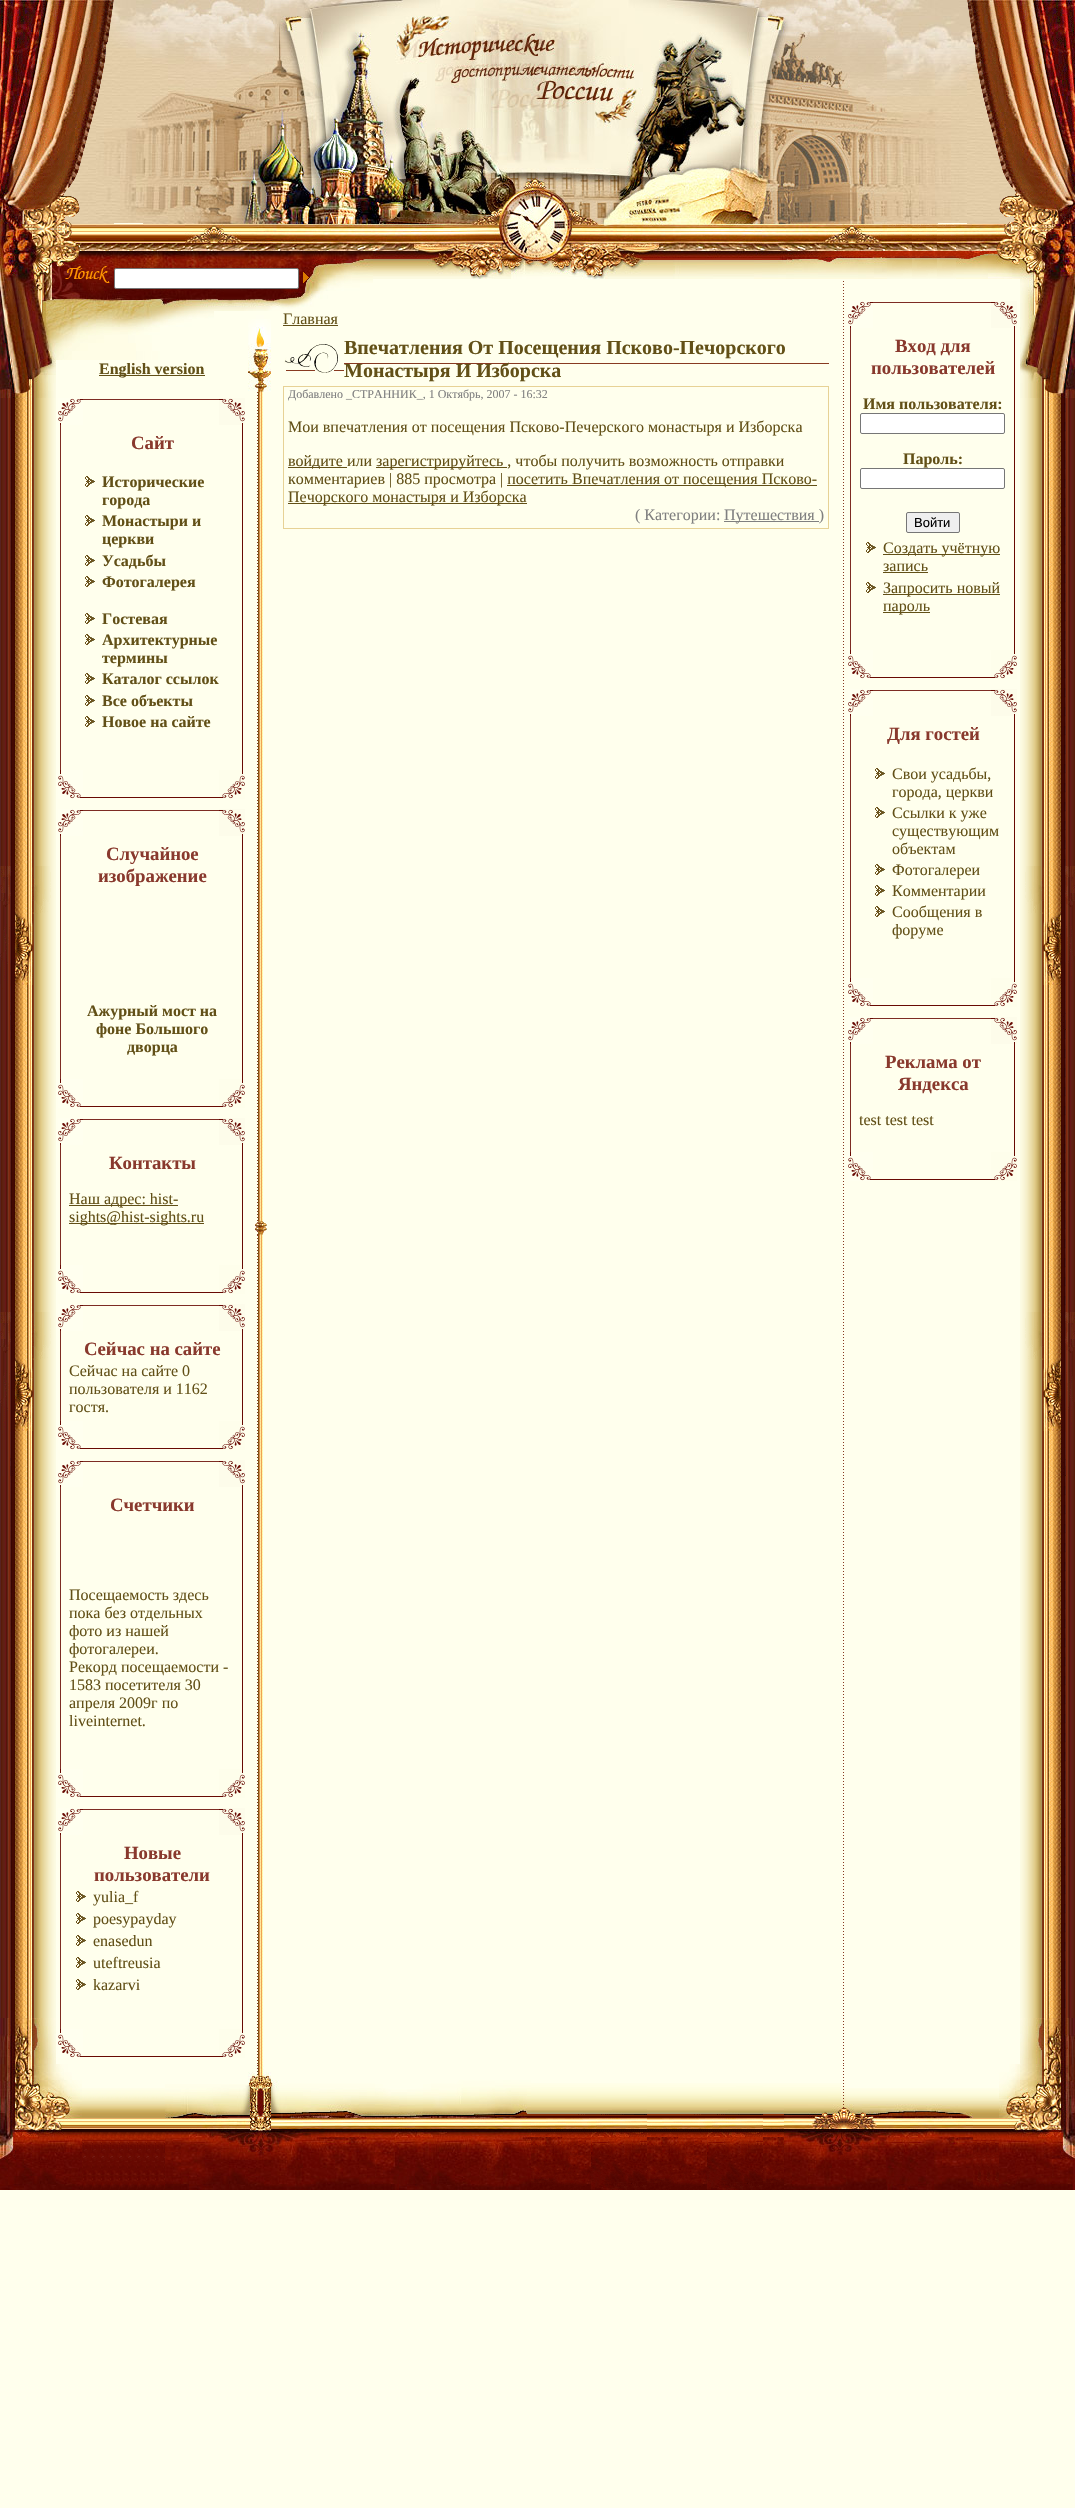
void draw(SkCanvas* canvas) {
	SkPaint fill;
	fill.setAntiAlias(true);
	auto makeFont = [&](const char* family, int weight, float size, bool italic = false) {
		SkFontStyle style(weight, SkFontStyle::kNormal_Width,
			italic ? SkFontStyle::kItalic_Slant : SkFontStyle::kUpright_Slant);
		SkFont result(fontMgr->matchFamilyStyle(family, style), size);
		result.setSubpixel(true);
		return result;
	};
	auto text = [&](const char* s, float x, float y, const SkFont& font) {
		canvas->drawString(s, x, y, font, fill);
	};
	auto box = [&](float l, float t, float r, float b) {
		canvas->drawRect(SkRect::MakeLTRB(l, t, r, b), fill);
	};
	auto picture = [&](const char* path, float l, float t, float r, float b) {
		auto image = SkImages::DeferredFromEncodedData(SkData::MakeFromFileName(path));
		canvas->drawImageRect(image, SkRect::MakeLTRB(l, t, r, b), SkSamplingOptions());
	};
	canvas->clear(0xFFFFFFED);
	picture("image10.png", 315, 178, 470, 279);
	picture("image0.png", 0, 251, 373, 311);
	picture("image1.png", 65, 266, 110, 283);
	fill.setColor(0xFFFFFFFF);
	canvas->drawRoundRect(SkRect::MakeLTRB(114.5f, 268.5f, 298.5f, 288.5f), 1.5f, 1.5f, fill);
	fill.setStyle(SkPaint::kStroke_Style);
	fill.setStrokeWidth(1);
	fill.setColor(0xFF767676);
	canvas->drawRoundRect(SkRect::MakeLTRB(114.5f, 268.5f, 298.5f, 288.5f), 1.5f, 1.5f, fill);
	picture("image2.png", 303, 272, 309, 283);
	picture("image3.png", 64, 0, 185, 224);
	picture("image4.png", 0, 0, 114, 224);
	fill.setStyle(SkPaint::kFill_Style);
	fill.setColor(0xFFFFFFED);
	box(114, 223, 143, 224);
	picture("image5.png", 185, 0, 315, 224);
	picture("image6.png", 80, 224, 185, 251);
	picture("image7.png", 0, 224, 80, 251);
	picture("image8.png", 185, 224, 315, 251);
	picture("image9.png", 315, 0, 754, 178);
	picture("image11.png", 470, 178, 601, 279);
	picture("image12.png", 601, 178, 754, 279);
	picture("image13.png", 754, 0, 887, 224);
	picture("image14.png", 887, 0, 1016, 224);
	box(938, 223, 967, 224);
	picture("image15.png", 967, 0, 1075, 224);
	picture("image16.png", 754, 224, 887, 279);
	picture("image17.png", 887, 224, 956, 279);
	picture("image18.png", 956, 224, 1075, 279);
	picture("image19.png", 0, 398, 56, 2018);
	picture("image20.png", 0, 311, 56, 398);
	picture("image21.png", 0, 866, 51, 1030);
	picture("image21.png", 0, 1312, 51, 1476);
	picture("image22.png", 0, 2018, 56, 2064);
	picture("image23.png", 56, 311, 214, 360);
	fill.setColor(0xFF625017);
	box(99, 375, 205, 376);
	picture("image24.png", 58, 398, 83, 425);
	fill.setColor(0xFF7D2C23);
	box(83, 399, 219, 400);
	picture("image25.png", 219, 398, 245, 425);
	box(60, 425, 61, 770);
	picture("image26.png", 85, 476, 95, 487);
	picture("image26.png", 85, 515, 95, 526);
	picture("image26.png", 85, 555, 95, 566);
	picture("image26.png", 85, 576, 95, 587);
	picture("image26.png", 85, 613, 95, 624);
	picture("image26.png", 85, 634, 95, 645);
	picture("image26.png", 85, 673, 95, 684);
	picture("image26.png", 85, 695, 95, 706);
	picture("image26.png", 85, 716, 95, 727);
	fill.setColor(0xFF680A03);
	box(242, 425, 243, 770);
	picture("image27.png", 58, 770, 83, 799);
	box(83, 797, 219, 798);
	picture("image28.png", 219, 770, 245, 799);
	picture("image24.png", 58, 809, 83, 836);
	fill.setColor(0xFF7D2C23);
	box(83, 810, 219, 811);
	picture("image25.png", 219, 809, 245, 836);
	box(60, 836, 61, 1079);
	fill.setColor(0xFF680A03);
	box(242, 836, 243, 1079);
	picture("image27.png", 58, 1079, 83, 1108);
	box(83, 1106, 219, 1107);
	picture("image28.png", 219, 1079, 245, 1108);
	picture("image24.png", 58, 1118, 83, 1145);
	fill.setColor(0xFF7D2C23);
	box(83, 1119, 219, 1120);
	picture("image25.png", 219, 1118, 245, 1145);
	box(60, 1145, 61, 1265);
	fill.setColor(0xFF625017);
	box(69, 1205, 178, 1206);
	box(69, 1223, 204, 1224);
	fill.setColor(0xFF680A03);
	box(242, 1145, 243, 1265);
	picture("image27.png", 58, 1265, 83, 1294);
	box(83, 1292, 219, 1293);
	picture("image28.png", 219, 1265, 245, 1294);
	picture("image24.png", 58, 1304, 83, 1331);
	fill.setColor(0xFF7D2C23);
	box(83, 1305, 219, 1306);
	picture("image25.png", 219, 1304, 245, 1331);
	box(60, 1331, 61, 1421);
	fill.setColor(0xFF680A03);
	box(242, 1331, 243, 1421);
	picture("image27.png", 58, 1421, 83, 1450);
	box(83, 1448, 219, 1449);
	picture("image28.png", 219, 1421, 245, 1450);
	picture("image24.png", 58, 1460, 83, 1487);
	fill.setColor(0xFF7D2C23);
	box(83, 1461, 219, 1462);
	picture("image25.png", 219, 1460, 245, 1487);
	box(60, 1487, 61, 1769);
	fill.setColor(0xFF680A03);
	box(242, 1487, 243, 1769);
	picture("image27.png", 58, 1769, 83, 1798);
	box(83, 1796, 219, 1797);
	picture("image28.png", 219, 1769, 245, 1798);
	picture("image24.png", 58, 1808, 83, 1835);
	fill.setColor(0xFF7D2C23);
	box(83, 1809, 219, 1810);
	picture("image25.png", 219, 1808, 245, 1835);
	box(60, 1835, 61, 2029);
	picture("image26.png", 76, 1891, 86, 1902);
	picture("image26.png", 76, 1913, 86, 1924);
	picture("image26.png", 76, 1935, 86, 1946);
	picture("image26.png", 76, 1957, 86, 1968);
	picture("image26.png", 76, 1979, 86, 1990);
	fill.setColor(0xFF680A03);
	box(242, 1835, 243, 2029);
	picture("image27.png", 58, 2029, 83, 2058);
	box(83, 2056, 219, 2057);
	picture("image28.png", 219, 2029, 245, 2058);
	picture("image29.png", 248, 311, 271, 392);
	picture("image30.png", 257, 392, 263, 2064);
	picture("image31.png", 255, 1221, 267, 1235);
	fill.setColor(0xFF625017);
	box(283, 325, 338, 326);
	picture("image32.png", 284, 344, 344, 373);
	fill.setColor(0xFF883A21);
	box(344, 363, 829, 364);
	fill.setStyle(SkPaint::kStroke_Style);
	fill.setColor(0xFFE7D296);
	canvas->drawRect(SkRect::MakeLTRB(283.5f, 386.5f, 828.5f, 528.5f), fill);
	fill.setStyle(SkPaint::kFill_Style);
	fill.setColor(0xFF625017);
	box(288, 467, 347, 468);
	box(376, 467, 507, 468);
	box(507, 485, 817, 486);
	box(288, 503, 527, 504);
	fill.setColor(0xFF808080);
	box(724, 521, 819, 522);
	picture("image33.png", 843, 281, 844, 2064);
	picture("image24.png", 848, 301, 873, 328);
	fill.setColor(0xFF7D2C23);
	box(873, 302, 991, 303);
	picture("image25.png", 991, 301, 1017, 328);
	box(850, 328, 851, 650);
	fill.setColor(0xFFFFFFFF);
	canvas->drawRoundRect(SkRect::MakeLTRB(860.5f, 413.5f, 1004.5f, 433.5f), 1.5f, 1.5f, fill);
	fill.setStyle(SkPaint::kStroke_Style);
	fill.setColor(0xFF767676);
	canvas->drawRoundRect(SkRect::MakeLTRB(860.5f, 413.5f, 1004.5f, 433.5f), 1.5f, 1.5f, fill);
	fill.setStyle(SkPaint::kFill_Style);
	fill.setColor(0xFFFFFFFF);
	canvas->drawRoundRect(SkRect::MakeLTRB(860.5f, 468.5f, 1004.5f, 488.5f), 1.5f, 1.5f, fill);
	fill.setStyle(SkPaint::kStroke_Style);
	fill.setColor(0xFF767676);
	canvas->drawRoundRect(SkRect::MakeLTRB(860.5f, 468.5f, 1004.5f, 488.5f), 1.5f, 1.5f, fill);
	fill.setStyle(SkPaint::kFill_Style);
	fill.setColor(0xFFEFEFEF);
	canvas->drawRoundRect(SkRect::MakeLTRB(906.5f, 512.5f, 959.5f, 532.5f), 1.5f, 1.5f, fill);
	fill.setStyle(SkPaint::kStroke_Style);
	fill.setColor(0xFF767676);
	canvas->drawRoundRect(SkRect::MakeLTRB(906.5f, 512.5f, 959.5f, 532.5f), 1.5f, 1.5f, fill);
	picture("image26.png", 866, 542, 876, 553);
	fill.setStyle(SkPaint::kFill_Style);
	fill.setColor(0xFF625017);
	box(883, 554, 1000, 555);
	box(883, 572, 928, 573);
	picture("image26.png", 866, 582, 876, 593);
	box(883, 594, 1000, 595);
	box(883, 612, 930, 613);
	fill.setColor(0xFF680A03);
	box(1014, 328, 1015, 650);
	picture("image27.png", 848, 650, 873, 679);
	box(873, 677, 991, 678);
	picture("image28.png", 991, 650, 1017, 679);
	picture("image24.png", 848, 689, 873, 716);
	fill.setColor(0xFF7D2C23);
	box(873, 690, 991, 691);
	picture("image25.png", 991, 689, 1017, 716);
	box(850, 716, 851, 978);
	picture("image26.png", 875, 768, 885, 779);
	picture("image26.png", 875, 807, 885, 818);
	picture("image26.png", 875, 864, 885, 875);
	picture("image26.png", 875, 885, 885, 896);
	picture("image26.png", 875, 906, 885, 917);
	fill.setColor(0xFF680A03);
	box(1014, 716, 1015, 978);
	picture("image27.png", 848, 978, 873, 1007);
	box(873, 1005, 991, 1006);
	picture("image28.png", 991, 978, 1017, 1007);
	picture("image24.png", 848, 1017, 873, 1044);
	fill.setColor(0xFF7D2C23);
	box(873, 1018, 991, 1019);
	picture("image25.png", 991, 1017, 1017, 1044);
	box(850, 1044, 851, 1152);
	fill.setColor(0xFF680A03);
	box(1014, 1044, 1015, 1152);
	picture("image27.png", 848, 1152, 873, 1181);
	box(873, 1179, 991, 1180);
	picture("image28.png", 991, 1152, 1017, 1181);
	picture("image34.png", 1020, 398, 1075, 2018);
	picture("image35.png", 1020, 279, 1075, 398);
	picture("image36.png", 1025, 866, 1075, 1030);
	picture("image36.png", 1025, 1312, 1075, 1476);
	picture("image37.png", 1020, 2018, 1075, 2064);
	picture("image38.png", 0, 2064, 56, 2190);
	picture("image39.png", 82, 2088, 165, 2190);
	picture("image40.png", 56, 2064, 82, 2190);
	picture("image41.png", 165, 2084, 248, 2190);
	picture("image42.png", 248, 2064, 271, 2190);
	picture("image43.png", 271, 2080, 531, 2190);
	picture("image44.png", 531, 2083, 841, 2190);
	picture("image45.png", 784, 2104, 841, 2190);
	picture("image46.png", 841, 2065, 846, 2190);
	picture("image47.png", 846, 2088, 999, 2190);
	picture("image48.png", 846, 2104, 973, 2190);
	picture("image49.png", 999, 2064, 1020, 2190);
	picture("image50.png", 1020, 2064, 1075, 2190);
	auto font1 = makeFont("Liberation Serif", 700, 16);
	fill.setColor(0xFF625017);
	text("English version", 99, 374, font1);
	auto font2 = makeFont("Liberation Serif", 700, 18.75f);
	fill.setColor(0xFF89392D);
	text("Сайт", 131, 449, font2);
	fill.setColor(0xFF625017);
	text("Исторические", 102, 487, font1);
	text("города", 102, 505, font1);
	text("Монастыри и", 102, 526, font1);
	text("церкви", 102, 544, font1);
	text("Усадьбы", 102, 566, font1);
	text("Фотогалерея", 102, 587, font1);
	text("Гостевая", 102, 624, font1);
	text("Архитектурные", 102, 645, font1);
	text("термины", 102, 663, font1);
	text("Каталог ссылок", 102, 684, font1);
	text("Все объекты", 102, 706, font1);
	text("Новое на сайте", 102, 727, font1);
	fill.setColor(0xFF89392D);
	text("Случайное", 106, 860, font2);
	text("изображение", 98, 882, font2);
	fill.setColor(0xFF625017);
	text("Ажурный мост на", 87, 1016, font1);
	text("фоне Большого", 96, 1034, font1);
	text("дворца", 127, 1052, font1);
	fill.setColor(0xFF89392D);
	text("Контакты", 109, 1169, font2);
	auto font3 = makeFont("Liberation Serif", 400, 16);
	fill.setColor(0xFF625017);
	text("Наш адрес: hist-", 69, 1204, font3);
	text("sights@hist-sights.ru", 69, 1222, font3);
	fill.setColor(0xFF89392D);
	text("Сейчас на сайте", 84, 1355, font2);
	fill.setColor(0xFF625017);
	text("Сейчас на сайте 0", 69, 1376, font3);
	text("пользователя и 1162", 69, 1394, font3);
	text("гостя.", 69, 1412, font3);
	fill.setColor(0xFF89392D);
	text("Счетчики", 110, 1511, font2);
	fill.setColor(0xFF625017);
	text("Посещаемость здесь", 69, 1600, font3);
	text("пока без отдельных", 69, 1618, font3);
	text("фото из нашей", 69, 1636, font3);
	text("фотогалереи.", 69, 1654, font3);
	text("Рекорд посещаемости -", 69, 1672, font3);
	text("1583 посетителя 30", 69, 1690, font3);
	text("апреля 2009г по", 69, 1708, font3);
	text("liveinternet.", 69, 1726, font3);
	fill.setColor(0xFF89392D);
	text("Новые", 124, 1859, font2);
	text("пользователи", 94, 1881, font2);
	fill.setColor(0xFF625017);
	text("yulia_f", 93, 1902, font3);
	text("poesypayday", 93, 1924, font3);
	text("enasedun", 93, 1946, font3);
	text("uteftreusia", 93, 1968, font3);
	text("kazarvi", 93, 1990, font3);
	text("Главная", 283, 324, font3);
	auto font4 = makeFont("Liberation Serif", 700, 20);
	text("Впечатления От Посещения Псково-Печорского", 344, 354, font4);
	text("Монастыря И Изборска", 344, 377, font4);
	auto font5 = makeFont("Liberation Serif", 400, 12);
	fill.setColor(0xFF808080);
	text("Добавлено _СТРАННИК_, 1 Октябрь, 2007 - 16:32", 288, 398, font5);
	fill.setColor(0xFF625017);
	text("Мои впечатления от посещения Псково-Печерского монастыря и Изборска", 288, 432, font3);
	text("войдите или", 288, 466, font3);
	text("зарегистрируйтесь , чтобы получить возможность отправки", 376, 466, font3);
	text("комментариев | 885 просмотра | посетить", 288, 484, font3);
	text("Впечатления от посещения Псково-", 572, 484, font3);
	text("Печорского монастыря и Изборска", 288, 502, font3);
	fill.setColor(0xFF808080);
	text("( Категории:", 635, 520, font3);
	text("Путешествия )", 724, 520, font3);
	fill.setColor(0xFF89392D);
	text("Вход для", 895, 352, font2);
	text("пользователей", 871, 374, font2);
	fill.setColor(0xFF625017);
	text("Имя пользователя:", 863, 409, font1);
	text("Пароль:", 903, 464, font1);
	auto font6 = makeFont("Liberation Sans", 400, 13);
	fill.setColor(0xFF000000);
	text("Войти", 914, 527, font6);
	fill.setColor(0xFF625017);
	text("Создать учётную", 883, 553, font3);
	text("запись", 883, 571, font3);
	text("Запросить новый", 883, 593, font3);
	text("пароль", 883, 611, font3);
	fill.setColor(0xFF89392D);
	text("Для гостей", 887, 740, font2);
	fill.setColor(0xFF625017);
	text("Свои усадьбы,", 892, 779, font3);
	text("города, церкви", 892, 797, font3);
	text("Ссылки к уже", 892, 818, font3);
	text("существующим", 892, 836, font3);
	text("объектам", 892, 854, font3);
	text("Фотогалереи", 892, 875, font3);
	text("Комментарии", 892, 896, font3);
	text("Сообщения в", 892, 917, font3);
	text("форуме", 892, 935, font3);
	fill.setColor(0xFF89392D);
	text("Реклама от", 885, 1068, font2);
	text("Яндекса", 898, 1090, font2);
	fill.setColor(0xFF625017);
	text("test test test", 859, 1125, font3);
}
